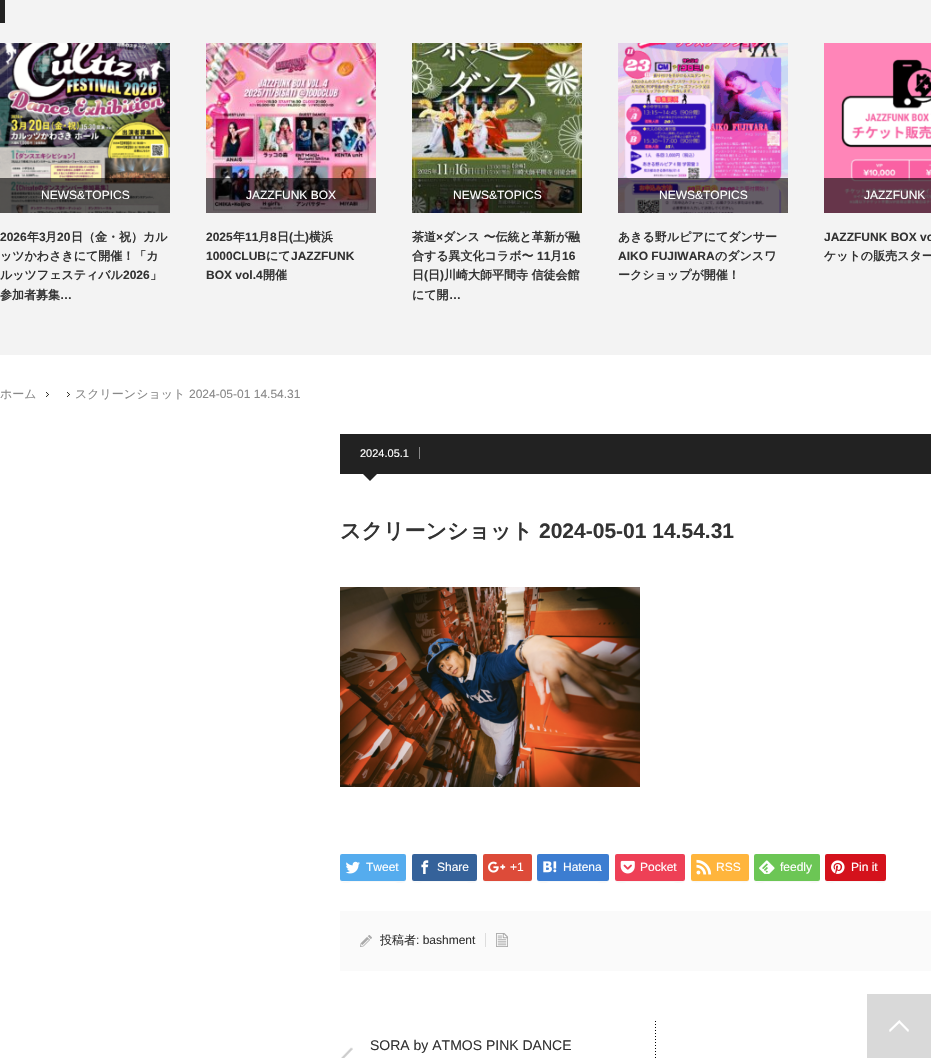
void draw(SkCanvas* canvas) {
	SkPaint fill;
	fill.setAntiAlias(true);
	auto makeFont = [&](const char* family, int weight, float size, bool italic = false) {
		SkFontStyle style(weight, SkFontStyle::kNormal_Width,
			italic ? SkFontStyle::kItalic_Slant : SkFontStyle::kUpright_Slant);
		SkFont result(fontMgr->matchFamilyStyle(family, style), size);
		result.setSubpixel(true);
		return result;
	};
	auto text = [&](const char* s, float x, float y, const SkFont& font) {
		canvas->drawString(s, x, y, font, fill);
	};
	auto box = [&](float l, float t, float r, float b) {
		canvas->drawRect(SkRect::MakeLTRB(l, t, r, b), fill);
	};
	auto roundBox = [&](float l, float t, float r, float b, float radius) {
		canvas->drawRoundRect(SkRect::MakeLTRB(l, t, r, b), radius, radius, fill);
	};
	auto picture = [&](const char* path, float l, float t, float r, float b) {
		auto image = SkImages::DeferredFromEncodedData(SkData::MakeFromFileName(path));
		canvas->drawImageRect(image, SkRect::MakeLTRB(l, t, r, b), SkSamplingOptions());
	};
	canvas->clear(0xFFFFFFFF);
	fill.setColor(0xFFF3F3F3);
	box(0, 0, 931, 355);
	fill.setColor(0xFF222222);
	box(0, 0, 5, 23);
	picture("image0.png", 0, 43, 170, 213);
	fill.setColor(0x99000000);
	box(0, 178, 170, 213);
	picture("image1.png", 206, 43, 376, 213);
	box(206, 178, 376, 213);
	picture("image2.png", 412, 43, 582, 213);
	box(412, 178, 582, 213);
	picture("image3.png", 618, 43, 788, 213);
	box(618, 178, 788, 213);
	picture("image4.png", 824, 43, 931, 213);
	box(824, 178, 931, 213);
	picture("image5.png", 46, 392, 49, 397);
	picture("image5.png", 67, 392, 70, 397);
	fill.setColor(0xFF222222);
	box(340, 434, 931, 474);
	fill.setColor(0xFF888888);
	box(419, 447, 420, 459);
	fill.setColor(0xFF222222);
	canvas->drawPath(SkPathBuilder().moveTo(360, 471).lineTo(380, 471).lineTo(370, 481).close().detach(), fill);
	picture("image6.png", 340, 587, 640, 787);
	fill.setColor(0xFFF7F7F7);
	canvas->drawPath(SkPathBuilder().moveTo(340, 879).cubicTo(340, 885, 349, 882, 352, 882).lineTo(394, 882).cubicTo(397, 882, 406, 885, 406, 879).lineTo(405, 881).lineTo(352, 881).cubicTo(348, 881, 340, 883, 340, 879).close().detach(), fill);
	fill.setColor(0xFF55ACEE);
	roundBox(340, 854, 406, 881, 2);
	picture("image7.png", 345, 861, 360, 874);
	fill.setColor(0xFFF7F7F7);
	canvas->drawPath(SkPathBuilder().moveTo(412, 879).cubicTo(412, 885, 420, 882, 424, 882).lineTo(465, 882).cubicTo(469, 882, 477, 885, 477, 879).lineTo(476, 881).lineTo(424, 881).cubicTo(420, 881, 412, 883, 412, 879).close().detach(), fill);
	fill.setColor(0xFF35629A);
	roundBox(412, 854, 477, 881, 2);
	picture("image8.png", 421, 860, 429, 874);
	fill.setColor(0xFFF7F7F7);
	canvas->drawPath(SkPathBuilder().moveTo(483, 879).cubicTo(483, 884, 489, 882, 492, 882).lineTo(522, 882).cubicTo(526, 882, 532, 884, 532, 879).cubicTo(532, 880, 531, 881, 530, 881).lineTo(485, 881).cubicTo(484, 881, 483, 880, 483, 879).close().detach(), fill);
	fill.setColor(0xFFDD4B39);
	roundBox(483, 854, 532, 881, 2);
	picture("image9.png", 488, 861, 506, 873);
	fill.setColor(0xFFF7F7F7);
	canvas->drawPath(SkPathBuilder().moveTo(537, 879).cubicTo(537, 885, 547, 882, 550, 882).lineTo(596, 882).cubicTo(599, 882, 609, 885, 609, 879).cubicTo(609, 880, 608, 881, 607, 881).lineTo(538, 881).close().detach(), fill);
	fill.setColor(0xFF3C7DD1);
	roundBox(537, 854, 609, 881, 2);
	picture("image10.png", 543, 861, 557, 873);
	fill.setColor(0xFFF7F7F7);
	canvas->drawPath(SkPathBuilder().moveTo(615, 879).cubicTo(615, 885, 624, 882, 628, 882).lineTo(672, 882).cubicTo(676, 882, 685, 885, 685, 879).cubicTo(685, 880, 684, 881, 683, 881).lineTo(616, 881).close().detach(), fill);
	fill.setColor(0xFFEE4056);
	roundBox(615, 854, 685, 881, 2);
	picture("image11.png", 620, 860, 635, 874);
	fill.setColor(0xFFF7F7F7);
	canvas->drawPath(SkPathBuilder().moveTo(691, 879).cubicTo(691, 884, 698, 882, 702, 882).lineTo(738, 882).cubicTo(742, 882, 749, 884, 749, 879).lineTo(748, 881).lineTo(692, 881).close().detach(), fill);
	fill.setColor(0xFFFFB53C);
	roundBox(691, 854, 749, 881, 2);
	picture("image12.png", 696, 859, 712, 875);
	fill.setColor(0xFFF7F7F7);
	canvas->drawPath(SkPathBuilder().moveTo(754, 879).cubicTo(754, 885, 763, 882, 766, 882).lineTo(808, 882).cubicTo(811, 882, 820, 885, 820, 879).lineTo(819, 881).lineTo(766, 881).cubicTo(762, 881, 754, 883, 754, 879).close().detach(), fill);
	fill.setColor(0xFF6CC655);
	roundBox(754, 854, 820, 881, 2);
	picture("image13.png", 759, 860, 775, 874);
	fill.setColor(0xFFF7F7F7);
	canvas->drawPath(SkPathBuilder().moveTo(825, 879).cubicTo(825, 885, 833, 882, 836, 882).lineTo(874, 882).cubicTo(878, 882, 886, 885, 886, 879).lineTo(885, 881).lineTo(836, 881).cubicTo(833, 881, 828, 883, 826, 880).close().detach(), fill);
	fill.setColor(0xFFD4121C);
	roundBox(825, 854, 886, 881, 2);
	picture("image14.png", 831, 860, 845, 874);
	fill.setColor(0xFFFAFAFA);
	box(340, 911, 931, 971);
	picture("image15.png", 360, 935, 372, 947);
	fill.setColor(0xFFDDDDDD);
	box(485, 933, 486, 947);
	picture("image16.png", 496, 933, 508, 947);
	picture("image17.png", 655, 1021, 656, 1058);
	picture("image18.png", 341, 1047, 353, 1058);
	fill.setColor(0xFFD9D9D9);
	box(867, 994, 931, 1058);
	picture("image19.png", 889, 1020, 909, 1032);
	auto font1 = makeFont("Liberation Sans", 400, 12);
	fill.setColor(0xFFFFFFFF);
	text("NEWS&TOPICS", 41, 199, font1);
	auto font2 = makeFont("Liberation Sans", 700, 12);
	fill.setColor(0xFF333333);
	text("2026", 0, 241, font2);
	auto font3 = makeFont("WenQuanYi Zen Hei", 700, 12);
	text("年", 27, 241, font3);
	text("3", 39, 241, font2);
	text("月", 45, 241, font3);
	text("20", 57, 241, font2);
	text("日（金・祝）カル", 71, 241, font3);
	text("ッツかわさきにて開催！「カ", 0, 260, font3);
	text("ルッツフェスティバル", 0, 279, font3);
	text("2026", 123, 279, font2);
	text("」", 150, 279, font3);
	text("参加者募集", 0, 299, font3);
	text("…", 60, 299, font2);
	fill.setColor(0xFFFFFFFF);
	text("JAZZFUNK BOX", 246, 199, font1);
	fill.setColor(0xFF333333);
	text("2025", 206, 241, font2);
	text("年", 233, 241, font3);
	text("11", 245, 241, font2);
	text("月", 258, 241, font3);
	text("8", 270, 241, font2);
	text("日", 277, 241, font3);
	text("(", 289, 241, font2);
	text("土", 293, 241, font3);
	text(")", 305, 241, font2);
	text("横浜", 309, 241, font3);
	text("1000CLUB", 206, 260, font2);
	text("にて", 266, 260, font3);
	text("JAZZFUNK", 291, 260, font2);
	text("BOX vol.4", 206, 279, font2);
	text("開催", 263, 279, font3);
	fill.setColor(0xFFFFFFFF);
	text("NEWS&TOPICS", 453, 199, font1);
	fill.setColor(0xFF333333);
	text("茶道", 412, 241, font3);
	text("×", 436, 241, font2);
	text("ダンス 〜伝統と革新が融", 443, 241, font3);
	text("合する異文化コラボ〜", 412, 260, font3);
	text("11", 537, 260, font2);
	text("月", 550, 260, font3);
	text("16", 562, 260, font2);
	text("日", 412, 279, font3);
	text("(", 424, 279, font2);
	text("日", 428, 279, font3);
	text(")", 440, 279, font2);
	text("川崎大師平間寺 信徒会館", 444, 279, font3);
	text("にて開", 412, 299, font3);
	text("…", 449, 299, font2);
	fill.setColor(0xFFFFFFFF);
	text("NEWS&TOPICS", 659, 199, font1);
	fill.setColor(0xFF333333);
	text("あきる野ルピアにてダンサー", 618, 241, font3);
	text("AIKO FUJIWARA", 618, 260, font2);
	text("のダンスワ", 715, 260, font3);
	text("ークショップが開催！", 618, 279, font3);
	fill.setColor(0xFFFFFFFF);
	text("JAZZFUNK", 864, 199, font1);
	fill.setColor(0xFF333333);
	text("JAZZFUNK BOX vo", 824, 241, font2);
	text("ケットの販売スター", 824, 260, font3);
	auto font4 = makeFont("WenQuanYi Zen Hei", 500, 12);
	fill.setColor(0xFF888888);
	text("ホーム", 0, 398, font4);
	text("スクリーンショット", 75, 398, font4);
	text("2024-05-01 14.54.31", 189, 398, font1);
	auto font5 = makeFont("Liberation Sans", 400, 11);
	fill.setColor(0xFFFFFFFF);
	text("2024.05.1", 360, 457, font5);
	auto font6 = makeFont("WenQuanYi Zen Hei", 700, 21);
	fill.setColor(0xFF333333);
	text("スクリーンショット", 340, 538, font6);
	auto font7 = makeFont("Liberation Sans", 700, 21);
	text("2024-05-01 14.54.31", 539, 538, font7);
	fill.setColor(0xFFFFFFFF);
	text("Tweet", 366, 871, font1);
	text("Share", 437, 871, font1);
	text("+1", 510, 871, font1);
	text("Hatena", 563, 871, font1);
	text("Pocket", 640, 871, font1);
	text("RSS", 716, 871, font1);
	text("feedly", 780, 871, font1);
	text("Pin it", 851, 871, font1);
	fill.setColor(0xFF333333);
	text("投稿者", 380, 944, font4);
	text(": bashment", 416, 944, font1);
	auto font8 = makeFont("Liberation Sans", 400, 14);
	text("SORA by ATMOS PINK DANCE", 370, 1050, font8);
}
